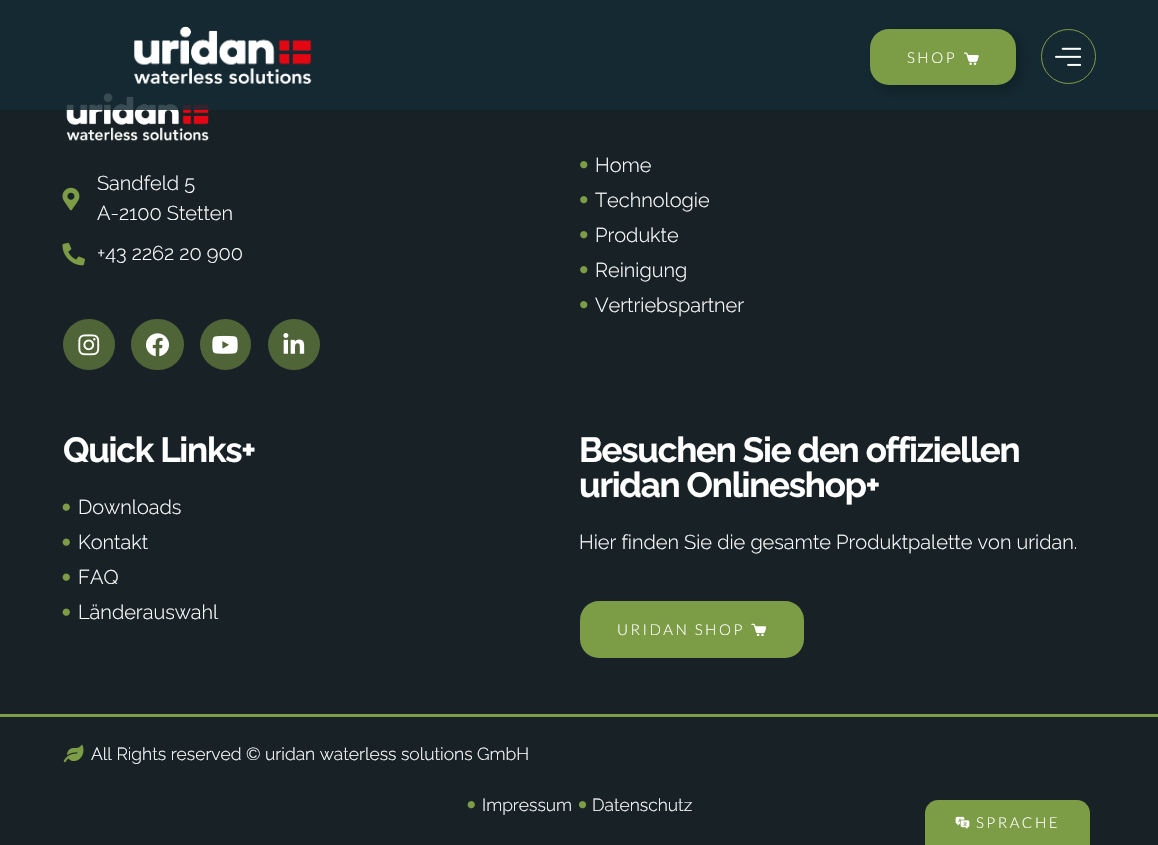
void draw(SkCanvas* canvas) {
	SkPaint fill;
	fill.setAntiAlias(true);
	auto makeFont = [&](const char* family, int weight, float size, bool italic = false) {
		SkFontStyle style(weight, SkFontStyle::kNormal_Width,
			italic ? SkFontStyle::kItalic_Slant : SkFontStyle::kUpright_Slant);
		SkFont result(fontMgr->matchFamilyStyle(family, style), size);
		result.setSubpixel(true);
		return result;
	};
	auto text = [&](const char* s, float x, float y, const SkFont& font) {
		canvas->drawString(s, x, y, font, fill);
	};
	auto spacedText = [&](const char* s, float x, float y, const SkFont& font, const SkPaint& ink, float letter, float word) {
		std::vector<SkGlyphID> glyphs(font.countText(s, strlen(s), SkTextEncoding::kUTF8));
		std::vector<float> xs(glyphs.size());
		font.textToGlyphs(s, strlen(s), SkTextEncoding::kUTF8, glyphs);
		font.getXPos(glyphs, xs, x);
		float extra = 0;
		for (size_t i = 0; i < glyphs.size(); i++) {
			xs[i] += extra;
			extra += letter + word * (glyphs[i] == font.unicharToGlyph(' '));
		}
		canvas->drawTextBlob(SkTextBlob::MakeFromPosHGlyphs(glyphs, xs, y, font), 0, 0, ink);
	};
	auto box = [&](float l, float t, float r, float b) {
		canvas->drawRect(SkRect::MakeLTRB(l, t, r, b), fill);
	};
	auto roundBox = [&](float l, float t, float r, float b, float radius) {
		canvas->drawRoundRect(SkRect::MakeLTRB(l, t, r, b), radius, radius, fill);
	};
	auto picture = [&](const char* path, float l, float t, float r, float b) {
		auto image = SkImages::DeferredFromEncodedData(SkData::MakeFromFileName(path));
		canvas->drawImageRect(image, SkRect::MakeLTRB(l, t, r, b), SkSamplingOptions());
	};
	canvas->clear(0xFF182226);
	picture("image4.png", 66, 93, 209, 141);
	fill.setColor(0xD6132A33);
	box(0, 0, 1158, 110);
	picture("image0.png", 134, 26, 312, 84);
	fill.setColor(0x3B000000);
	fill.setMaskFilter(SkMaskFilter::MakeBlur(kNormal_SkBlurStyle, 6));
	canvas->drawRoundRect(SkRect::MakeLTRB(875, 34, 1021, 90), 19, 19, fill);
	fill.setMaskFilter(nullptr);
	fill.setColor(0xFF7C9C45);
	roundBox(870, 29, 1016, 85, 19);
	picture("image1.png", 964, 52, 979, 65);
	fill.setStyle(SkPaint::kStroke_Style);
	fill.setStrokeWidth(1);
	canvas->drawCircle(1068.5f, 56.5f, 27, fill);
	picture("image2.png", 1055, 47, 1081, 66);
	fill.setStyle(SkPaint::kFill_Style);
	canvas->drawPath(SkPathBuilder().moveTo(938, 800).lineTo(1077, 800).cubicTo(1084, 800, 1090, 806, 1090, 813).lineTo(1090, 845).lineTo(925, 845).lineTo(925, 813).cubicTo(925, 806, 931, 800, 938, 800).close().detach(), fill);
	picture("image3.png", 955, 816, 970, 829);
	picture("image5.png", 62, 187, 80, 211);
	picture("image6.png", 62, 242, 85, 266);
	fill.setColor(0xFF4F6537);
	roundBox(63, 319, 115, 370, 25.5f);
	picture("image7.png", 78, 334, 100, 356);
	roundBox(131, 319, 184, 370, 25.5f);
	picture("image8.png", 146, 333, 169, 357);
	canvas->drawCircle(225.5f, 344.5f, 25.5f, fill);
	picture("image9.png", 212, 335, 238, 354);
	roundBox(268, 319, 320, 370, 25.5f);
	picture("image10.png", 283, 333, 305, 354);
	picture("image11.png", 580, 161, 588, 169);
	picture("image11.png", 580, 196, 588, 204);
	picture("image11.png", 580, 231, 588, 239);
	picture("image11.png", 580, 266, 588, 274);
	picture("image11.png", 580, 301, 588, 309);
	picture("image12.png", 62, 503, 70, 511);
	picture("image12.png", 62, 538, 70, 546);
	picture("image12.png", 62, 573, 70, 581);
	picture("image12.png", 62, 608, 70, 616);
	fill.setColor(0xFF7C9C45);
	roundBox(580, 601, 804, 658, 19);
	picture("image13.png", 751, 623, 766, 636);
	box(0, 714, 1158, 717);
	picture("image14.png", 63, 744, 84, 763);
	picture("image15.png", 467, 801, 475, 809);
	picture("image16.png", 578, 801, 587, 809);
	auto font1 = makeFont("Lato", 300, 15);
	fill.setColor(0xFFFFFFFF);
	spacedText("SHOP", 907, 63, font1, fill, 2.5f, 0);
	spacedText("SPRACHE", 976, 828, font1, fill, 2.5f, 0);
	auto font2 = makeFont("Raleway", 300, 20);
	text("Sandfeld 5", 97, 190, font2);
	text("A-2100 Stetten", 97, 220, font2);
	text("+43 2262 20 900", 97, 260, font2);
	text("Home", 595, 172, font2);
	text("Technologie", 595, 207, font2);
	text("Produkte", 595, 242, font2);
	text("Reinigung", 595, 277, font2);
	text("Vertriebspartner", 595, 312, font2);
	auto font3 = makeFont("Raleway", 100, 35);
	spacedText("Quick Links+", 63, 462, font3, fill, -1.25f, 0);
	text("Downloads", 78, 514, font2);
	text("Kontakt", 78, 549, font2);
	text("FAQ", 78, 584, font2);
	text("Länderauswahl", 78, 619, font2);
	spacedText("Besuchen Sie den offiziellen", 579, 462, font3, fill, -1.25f, 0);
	spacedText("uridan Onlineshop+", 579, 497, font3, fill, -1.25f, 0);
	text("Hier finden Sie die gesamte Produktpalette von uridan.", 579, 549, font2);
	spacedText("URIDAN SHOP", 617, 635, font1, fill, 2.5f, 0);
	auto font4 = makeFont("Raleway", 300, 17.5f);
	text("All Rights reserved © uridan waterless solutions GmbH", 91, 760, font4);
	text("Impressum", 482, 811, font4);
	text("Datenschutz", 592, 811, font4);
}
